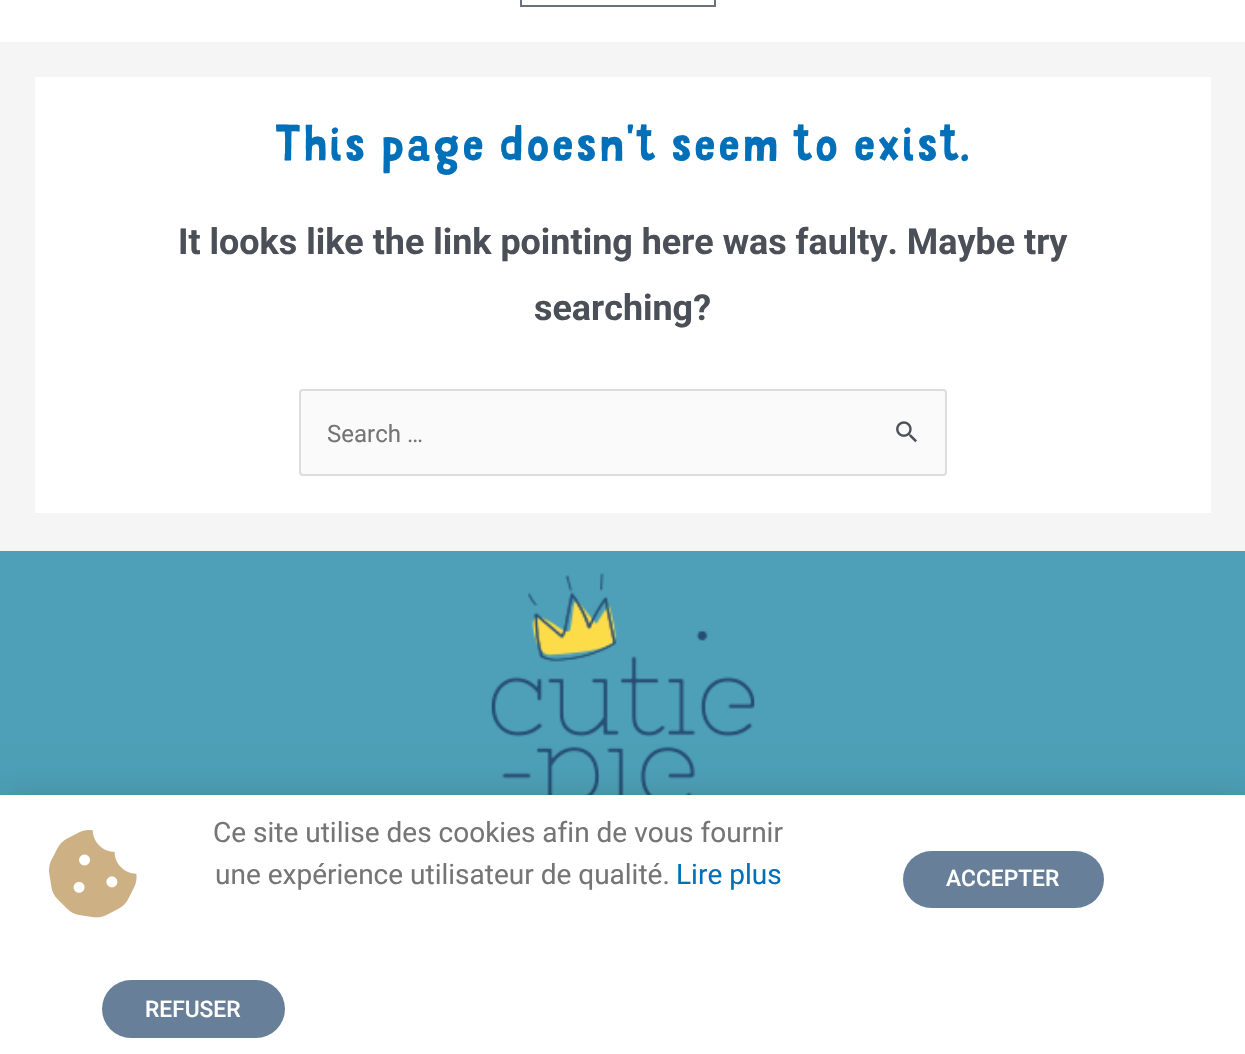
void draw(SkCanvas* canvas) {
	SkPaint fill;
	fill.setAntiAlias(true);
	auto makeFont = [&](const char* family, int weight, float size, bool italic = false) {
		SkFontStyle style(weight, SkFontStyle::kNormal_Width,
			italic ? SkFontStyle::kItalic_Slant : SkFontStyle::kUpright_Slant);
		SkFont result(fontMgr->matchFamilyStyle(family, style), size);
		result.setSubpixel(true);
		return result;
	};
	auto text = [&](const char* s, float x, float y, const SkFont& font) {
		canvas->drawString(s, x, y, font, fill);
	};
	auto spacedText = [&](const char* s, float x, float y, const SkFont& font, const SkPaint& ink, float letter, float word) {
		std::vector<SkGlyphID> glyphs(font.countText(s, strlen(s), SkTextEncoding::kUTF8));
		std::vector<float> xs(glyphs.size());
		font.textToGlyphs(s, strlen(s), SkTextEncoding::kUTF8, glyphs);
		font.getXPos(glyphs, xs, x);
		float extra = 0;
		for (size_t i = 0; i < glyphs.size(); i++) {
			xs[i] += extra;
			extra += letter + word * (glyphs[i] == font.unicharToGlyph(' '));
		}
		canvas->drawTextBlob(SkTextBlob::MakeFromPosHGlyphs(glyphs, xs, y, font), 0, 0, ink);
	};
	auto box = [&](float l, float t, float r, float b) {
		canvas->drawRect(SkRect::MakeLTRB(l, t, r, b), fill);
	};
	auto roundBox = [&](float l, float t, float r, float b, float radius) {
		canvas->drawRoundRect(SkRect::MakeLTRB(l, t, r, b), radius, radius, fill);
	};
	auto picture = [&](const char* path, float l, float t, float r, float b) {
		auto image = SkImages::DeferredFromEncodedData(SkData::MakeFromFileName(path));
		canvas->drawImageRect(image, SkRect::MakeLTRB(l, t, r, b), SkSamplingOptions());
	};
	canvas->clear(0xFFF5F5F5);
	fill.setColor(0xFFFFFFFF);
	box(0, 0, 1245, 42);
	fill.setStyle(SkPaint::kStroke_Style);
	fill.setStrokeWidth(2);
	fill.setColor(0xFF69727D);
	canvas->drawRect(SkRect::MakeLTRB(521, -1, 715, 6), fill);
	fill.setStyle(SkPaint::kFill_Style);
	fill.setColor(0xFFFFFFFF);
	box(35, 77, 1211, 513);
	fill.setColor(0xFFFAFAFA);
	canvas->drawRoundRect(SkRect::MakeLTRB(300, 390, 946, 475), 3, 3, fill);
	fill.setStyle(SkPaint::kStroke_Style);
	fill.setColor(0xFFDDDDDD);
	canvas->drawRoundRect(SkRect::MakeLTRB(300, 390, 946, 475), 3, 3, fill);
	picture("image0.png", 896, 421, 917, 443);
	fill.setStyle(SkPaint::kFill_Style);
	fill.setColor(0xFF4DA0B7);
	box(0, 551, 1245, 795);
	picture("image1.png", 491, 573, 755, 795);
	fill.setColor(0x33000000);
	fill.setMaskFilter(SkMaskFilter::MakeBlur(kNormal_SkBlurStyle, 20));
	canvas->drawRect(SkRect::MakeLTRB(-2, 803, 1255, 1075), fill);
	fill.setMaskFilter(nullptr);
	fill.setColor(0xFFFFFFFF);
	box(0, 795, 1245, 1054);
	picture("image2.png", 49, 830, 137, 918);
	fill.setColor(0xFF677F98);
	roundBox(903, 851, 1104, 908, 28.5f);
	roundBox(102, 980, 285, 1038, 29);
	auto font1 = makeFont("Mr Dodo", 400, 49);
	fill.setColor(0xFF0170B9);
	spacedText("This page doesn't seem to exist.", 274, 161, font1, fill, 0, -0.5f);
	auto font2 = makeFont("Roboto", 700, 35.9f);
	fill.setColor(0xFF4B4F58);
	text("It looks like the link pointing here was faulty. Maybe try", 178, 254, font2);
	text("searching?", 534, 320, font2);
	auto font3 = makeFont("Roboto", 400, 24);
	fill.setColor(0xFF757575);
	text("Search …", 327, 442, font3);
	auto font4 = makeFont("Roboto", 400, 28);
	text("Ce site utilise des cookies afin de vous fournir", 213, 842, font4);
	text("une expérience utilisateur de qualité.", 215, 884, font4);
	fill.setColor(0xFF0170B9);
	text("Lire plus", 676, 884, font4);
	auto font5 = makeFont("Roboto", 500, 22.75f);
	fill.setColor(0xFFFFFFFF);
	text("ACCEPTER", 946, 886, font5);
	text("REFUSER", 145, 1017, font5);
}
